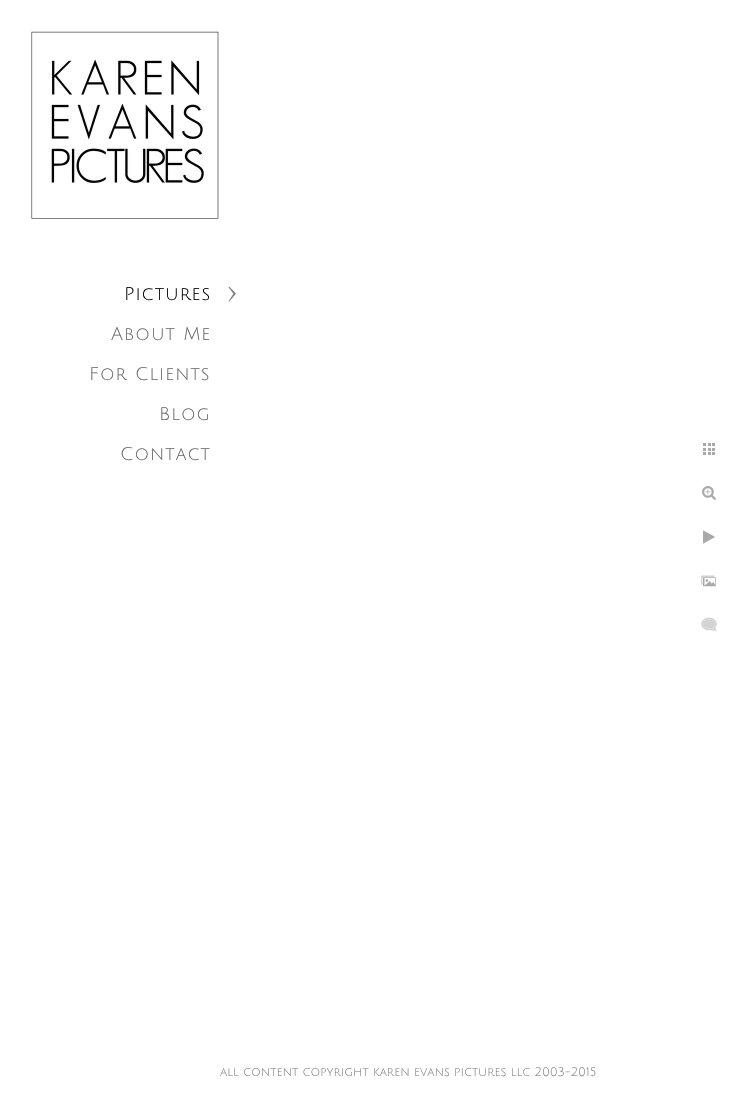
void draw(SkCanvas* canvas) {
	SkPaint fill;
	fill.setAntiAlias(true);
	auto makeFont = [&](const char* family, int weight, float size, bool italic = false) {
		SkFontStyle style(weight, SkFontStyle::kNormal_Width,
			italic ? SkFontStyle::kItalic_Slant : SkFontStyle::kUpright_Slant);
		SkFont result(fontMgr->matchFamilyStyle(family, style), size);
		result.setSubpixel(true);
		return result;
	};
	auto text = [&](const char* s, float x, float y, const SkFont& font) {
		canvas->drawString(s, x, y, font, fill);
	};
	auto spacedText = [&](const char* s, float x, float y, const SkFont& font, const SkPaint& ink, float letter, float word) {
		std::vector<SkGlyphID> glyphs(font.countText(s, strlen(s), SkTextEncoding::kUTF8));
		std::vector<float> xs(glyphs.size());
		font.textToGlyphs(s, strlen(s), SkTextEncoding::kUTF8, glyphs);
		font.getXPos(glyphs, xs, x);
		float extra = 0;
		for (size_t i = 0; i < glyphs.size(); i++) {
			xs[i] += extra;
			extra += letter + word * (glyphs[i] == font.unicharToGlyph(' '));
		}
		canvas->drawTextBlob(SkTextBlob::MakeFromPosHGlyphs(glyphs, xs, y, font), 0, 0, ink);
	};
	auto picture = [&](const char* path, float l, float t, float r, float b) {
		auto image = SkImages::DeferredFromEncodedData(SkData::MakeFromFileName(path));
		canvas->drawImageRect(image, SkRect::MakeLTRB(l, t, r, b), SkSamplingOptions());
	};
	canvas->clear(0xFFFFFFFF);
	picture("image0.png", 31, 31, 219, 219);
	picture("image1.png", 228, 286, 236, 302);
	picture("image2.png", 703, 443, 715, 455);
	picture("image3.png", 702, 486, 716, 500);
	picture("image4.png", 703, 530, 715, 544);
	picture("image5.png", 701, 575, 716, 587);
	picture("image6.png", 701, 617, 717, 631);
	auto font1 = makeFont("Julius Sans One", 400, 18);
	fill.setColor(0xFF000000);
	spacedText("Pictures", 124, 300, font1, fill, 1, 0);
	fill.setColor(0xFF696969);
	spacedText("About Me", 111, 340, font1, fill, 1, 0);
	spacedText("For Clients", 89, 380, font1, fill, 1, 0);
	spacedText("Blog", 159, 420, font1, fill, 1, 0);
	spacedText("Contact", 120, 460, font1, fill, 1, 0);
	auto font2 = makeFont("Julius Sans One", 400, 12);
	fill.setColor(0xFF808080);
	text("all content copyright karen evans pictures llc 2003-2015", 220, 1076, font2);
}
